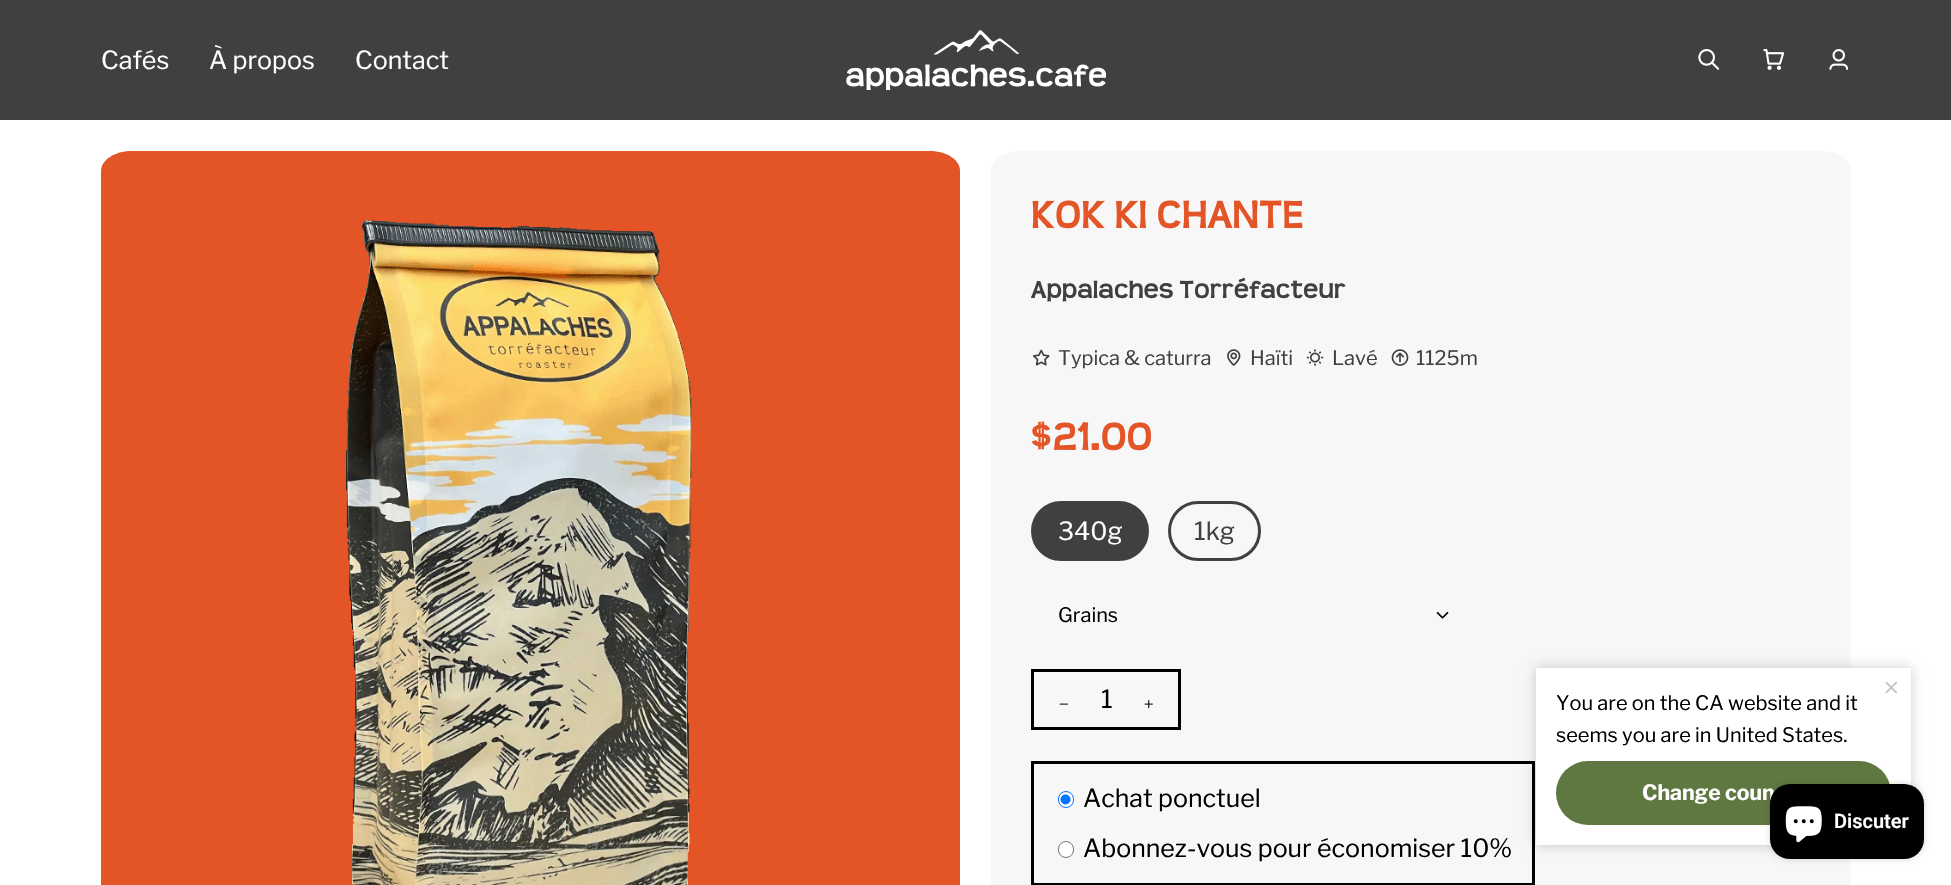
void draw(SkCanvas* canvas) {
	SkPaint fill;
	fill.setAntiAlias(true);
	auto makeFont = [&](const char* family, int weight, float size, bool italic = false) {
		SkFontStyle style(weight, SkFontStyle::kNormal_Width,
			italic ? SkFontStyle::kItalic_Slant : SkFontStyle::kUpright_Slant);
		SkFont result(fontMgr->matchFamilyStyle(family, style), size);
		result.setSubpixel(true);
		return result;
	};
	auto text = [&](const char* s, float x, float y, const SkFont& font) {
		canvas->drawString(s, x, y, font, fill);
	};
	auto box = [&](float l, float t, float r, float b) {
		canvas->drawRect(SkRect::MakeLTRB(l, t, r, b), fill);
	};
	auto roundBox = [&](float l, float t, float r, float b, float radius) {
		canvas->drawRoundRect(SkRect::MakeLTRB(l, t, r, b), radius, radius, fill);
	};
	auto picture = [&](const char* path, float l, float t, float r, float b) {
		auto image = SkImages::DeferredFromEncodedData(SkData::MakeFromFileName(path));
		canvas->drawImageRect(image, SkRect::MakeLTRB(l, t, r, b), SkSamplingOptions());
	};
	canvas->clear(0xFFFFFFFF);
	fill.setColor(0xFF404040);
	box(0, 0, 1951, 120);
	picture("image0.png", 846, 30, 1106, 90);
	picture("image1.png", 1698, 49, 1720, 70);
	picture("image2.png", 1763, 49, 1785, 70);
	picture("image3.png", 1829, 49, 1849, 70);
	fill.setColor(0xFFE35426);
	canvas->drawPath(SkPathBuilder().moveTo(131, 151).lineTo(930, 151).cubicTo(947, 151, 960, 160, 960, 171).lineTo(960, 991).cubicTo(960, 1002, 947, 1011, 930, 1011).lineTo(131, 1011).cubicTo(115, 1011, 101, 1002, 101, 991).lineTo(101, 171).cubicTo(101, 160, 115, 151, 131, 151).close().detach(), fill);
	picture("image4.png", 346, 220, 692, 885);
	fill.setColor(0xFFF7F7F7);
	canvas->drawPath(SkPathBuilder().moveTo(1021, 151).lineTo(1821, 151).cubicTo(1838, 151, 1851, 160, 1851, 171).lineTo(1851, 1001).cubicTo(1851, 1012, 1838, 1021, 1821, 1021).lineTo(1021, 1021).cubicTo(1005, 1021, 991, 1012, 991, 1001).lineTo(991, 171).cubicTo(991, 160, 1005, 151, 1021, 151).close().detach(), fill);
	picture("image5.png", 1033, 349, 1050, 366);
	picture("image6.png", 1227, 349, 1241, 366);
	picture("image7.png", 1306, 349, 1324, 366);
	picture("image8.png", 1391, 349, 1409, 366);
	fill.setColor(0xFF404040);
	canvas->drawRoundRect(SkRect::MakeLTRB(1032.5f, 502.5f, 1147.5f, 559.5f), 28.5f, 28.5f, fill);
	fill.setStyle(SkPaint::kStroke_Style);
	fill.setStrokeWidth(3);
	canvas->drawRoundRect(SkRect::MakeLTRB(1032.5f, 502.5f, 1147.5f, 559.5f), 28.5f, 28.5f, fill);
	canvas->drawRoundRect(SkRect::MakeLTRB(1169.5f, 502.5f, 1259.5f, 559.5f), 28.5f, 28.5f, fill);
	picture("image9.png", 1436, 611, 1449, 619);
	fill.setColor(0xFF000000);
	canvas->drawRect(SkRect::MakeLTRB(1032.5f, 670.5f, 1179.5f, 728.5f), fill);
	picture("image10.png", 1059, 703, 1068, 705);
	picture("image11.png", 1144, 700, 1153, 709);
	canvas->drawRect(SkRect::MakeLTRB(1032.5f, 762.5f, 1533.5f, 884.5f), fill);
	fill.setStyle(SkPaint::kFill_Style);
	fill.setColor(0xFFFFFFFF);
	canvas->drawRoundRect(SkRect::MakeLTRB(1058.5f, 791.5f, 1073.5f, 807.5f), 7.5f, 7.5f, fill);
	fill.setStyle(SkPaint::kStroke_Style);
	fill.setStrokeWidth(1);
	fill.setColor(0xFF0075FF);
	canvas->drawRoundRect(SkRect::MakeLTRB(1058.5f, 791.5f, 1073.5f, 807.5f), 7.5f, 7.5f, fill);
	fill.setStyle(SkPaint::kFill_Style);
	canvas->drawCircle(1065.5f, 799.5f, 5, fill);
	fill.setColor(0xFFFFFFFF);
	canvas->drawRoundRect(SkRect::MakeLTRB(1058.5f, 841.5f, 1073.5f, 857.5f), 7.5f, 7.5f, fill);
	fill.setStyle(SkPaint::kStroke_Style);
	fill.setColor(0xFF767676);
	canvas->drawRoundRect(SkRect::MakeLTRB(1058.5f, 841.5f, 1073.5f, 857.5f), 7.5f, 7.5f, fill);
	fill.setStyle(SkPaint::kFill_Style);
	fill.setColor(0x33000000);
	fill.setMaskFilter(SkMaskFilter::MakeBlur(kNormal_SkBlurStyle, 6));
	canvas->drawRect(SkRect::MakeLTRB(1536, 668, 1911, 845), fill);
	fill.setMaskFilter(nullptr);
	fill.setColor(0xFFFFFFFF);
	box(1536, 668, 1911, 845);
	picture("image12.png", 1885, 681, 1897, 694);
	fill.setColor(0xFF5F7841);
	roundBox(1556, 761, 1891, 825, 32);
	fill.setColor(0x26000000);
	fill.setMaskFilter(SkMaskFilter::MakeBlur(kNormal_SkBlurStyle, 3));
	canvas->drawRoundRect(SkRect::MakeLTRB(1770, 784, 1924, 859), 20, 20, fill);
	fill.setMaskFilter(nullptr);
	auto font1 = makeFont("Libre Franklin", 400, 25);
	fill.setColor(0xFFFFFFFF);
	text("Cafés", 101, 69, font1);
	text("À propos", 209, 69, font1);
	text("Contact", 355, 69, font1);
	auto font2 = makeFont("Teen", 700, 40);
	fill.setColor(0xFFE35426);
	text("KOK KI CHANTE", 1031, 228, font2);
	auto font3 = makeFont("Teen", 700, 25);
	fill.setColor(0xFF404040);
	text("Appalaches Torréfacteur", 1031, 298, font3);
	auto font4 = makeFont("Libre Franklin", 400, 20);
	text("Typica & caturra", 1058, 365, font4);
	text("Haïti", 1250, 365, font4);
	text("Lavé", 1332, 365, font4);
	text("1125m", 1416, 365, font4);
	fill.setColor(0xFFE35426);
	text("$21.00", 1031, 450, font2);
	fill.setColor(0xFFFFFFFF);
	text("340g", 1058, 540, font1);
	fill.setColor(0xFF404040);
	text("1kg", 1194, 540, font1);
	fill.setColor(0xFF000000);
	text("Grains", 1058, 622, font4);
	text("1", 1101, 708, font1);
	text("Achat ponctuel", 1083, 807, font1);
	text("Abonnez-vous pour économiser 10%", 1083, 857, font1);
	text("You are on the CA website and it", 1556, 710, font4);
	text("seems you are in United States.", 1556, 742, font4);
	auto font5 = makeFont("Libre Franklin", 700, 21.25f);
	fill.setColor(0xFFFFFFFF);
	text("Change coun", 1642, 800, font5);
	fill.setColor(0xFF000000);
	roundBox(1770, 784, 1924, 859, 20);
	picture("image13.png", 1785, 806, 1822, 843);
	auto font6 = makeFont("Roboto", 600, 20);
	fill.setColor(0xFFFFFFFF);
	text("Discuter", 1834, 828, font6);
}
